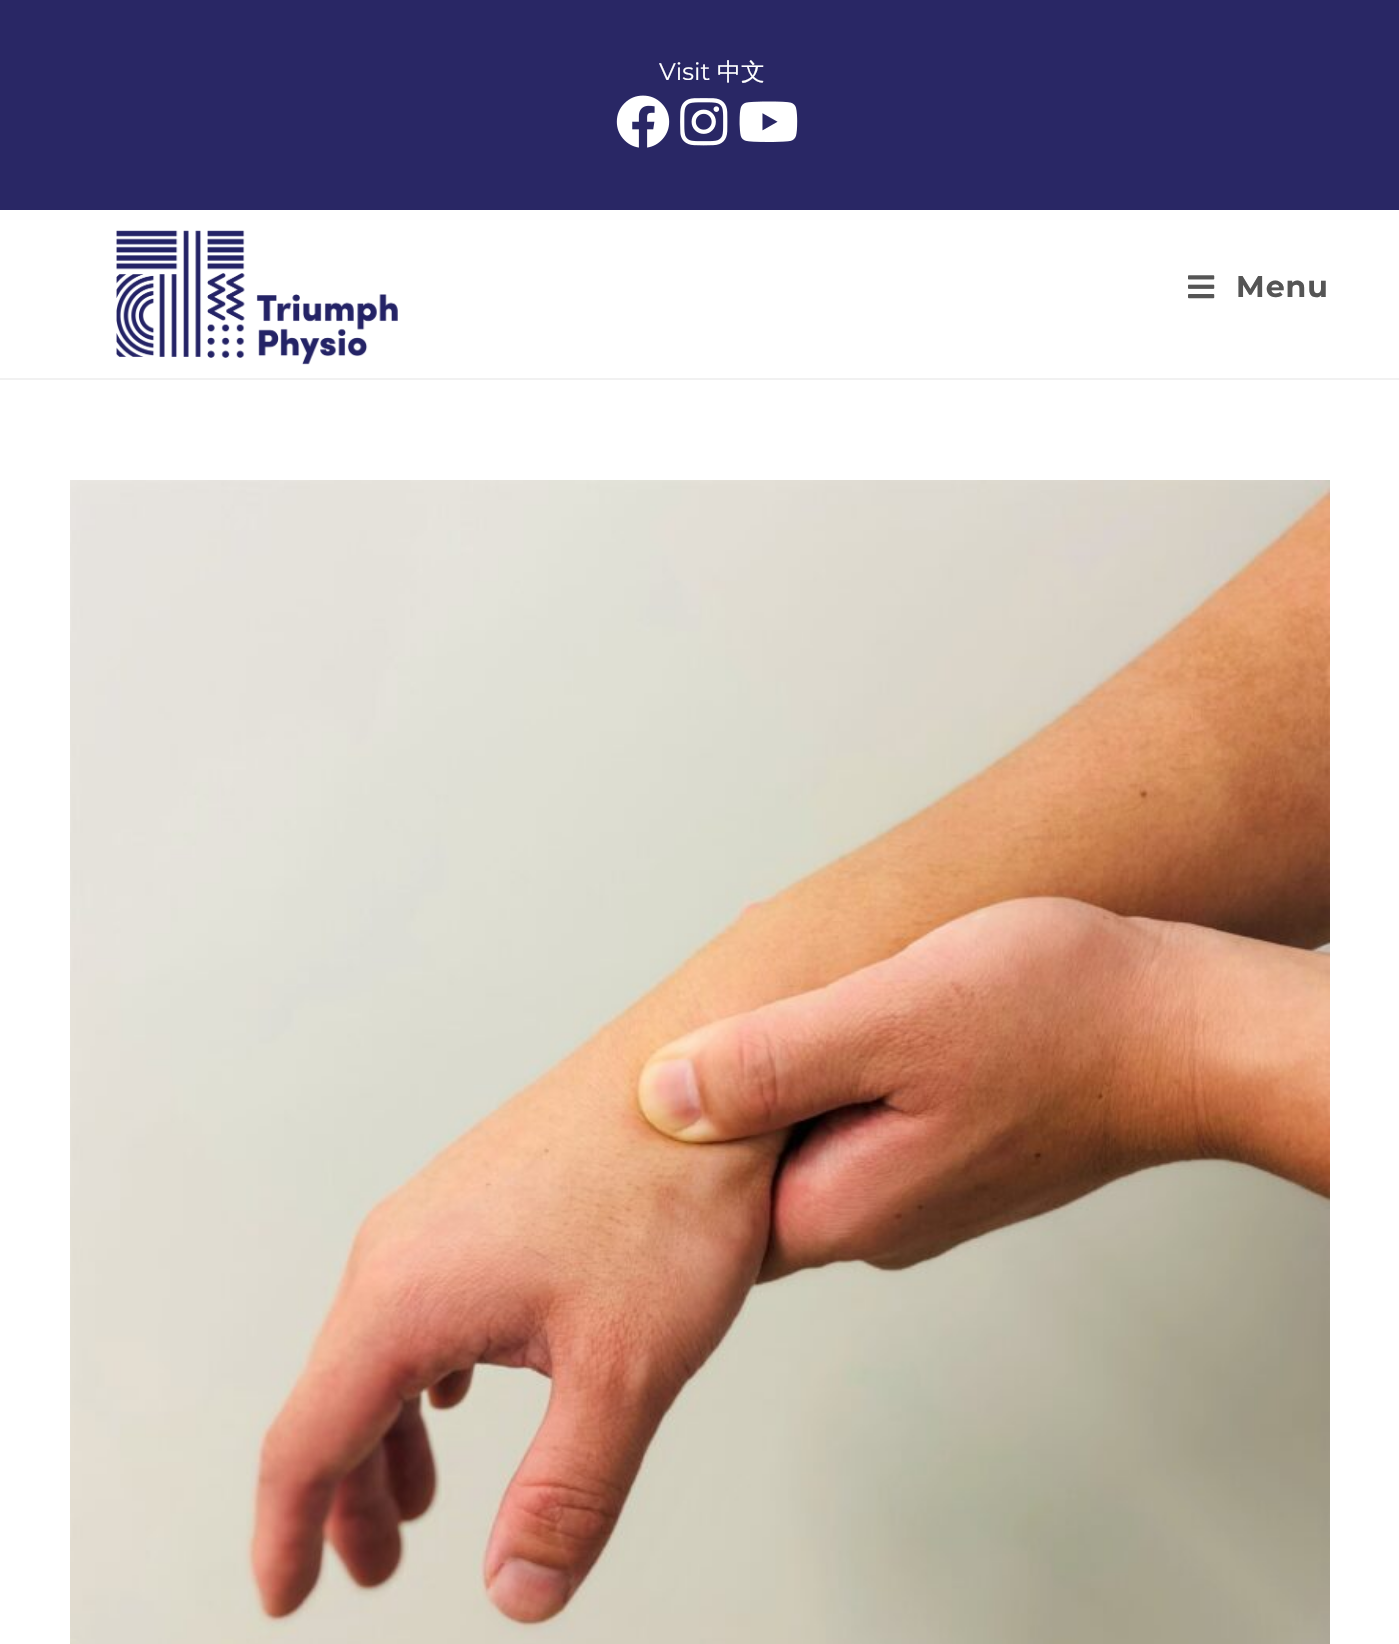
void draw(SkCanvas* canvas) {
	SkPaint fill;
	fill.setAntiAlias(true);
	auto makeFont = [&](const char* family, int weight, float size, bool italic = false) {
		SkFontStyle style(weight, SkFontStyle::kNormal_Width,
			italic ? SkFontStyle::kItalic_Slant : SkFontStyle::kUpright_Slant);
		SkFont result(fontMgr->matchFamilyStyle(family, style), size);
		result.setSubpixel(true);
		return result;
	};
	auto text = [&](const char* s, float x, float y, const SkFont& font) {
		canvas->drawString(s, x, y, font, fill);
	};
	auto spacedText = [&](const char* s, float x, float y, const SkFont& font, const SkPaint& ink, float letter, float word) {
		std::vector<SkGlyphID> glyphs(font.countText(s, strlen(s), SkTextEncoding::kUTF8));
		std::vector<float> xs(glyphs.size());
		font.textToGlyphs(s, strlen(s), SkTextEncoding::kUTF8, glyphs);
		font.getXPos(glyphs, xs, x);
		float extra = 0;
		for (size_t i = 0; i < glyphs.size(); i++) {
			xs[i] += extra;
			extra += letter + word * (glyphs[i] == font.unicharToGlyph(' '));
		}
		canvas->drawTextBlob(SkTextBlob::MakeFromPosHGlyphs(glyphs, xs, y, font), 0, 0, ink);
	};
	auto box = [&](float l, float t, float r, float b) {
		canvas->drawRect(SkRect::MakeLTRB(l, t, r, b), fill);
	};
	auto picture = [&](const char* path, float l, float t, float r, float b) {
		auto image = SkImages::DeferredFromEncodedData(SkData::MakeFromFileName(path));
		canvas->drawImageRect(image, SkRect::MakeLTRB(l, t, r, b), SkSamplingOptions());
	};
	canvas->clear(0xFFFFFFFF);
	fill.setColor(0xFF292765);
	box(0, 0, 1399, 210);
	picture("image0.png", 616, 95, 670, 148);
	picture("image1.png", 680, 98, 728, 146);
	picture("image2.png", 739, 101, 798, 142);
	fill.setColor(0xFFF1F1F1);
	box(0, 378, 1399, 380);
	picture("image3.png", 116, 230, 398, 365);
	picture("image4.png", 1188, 275, 1215, 299);
	picture("image5.png", 70, 480, 1330, 1644);
	auto font1 = makeFont("Montserrat", 100, 24);
	fill.setColor(0xFFFFFFFF);
	text("Visit", 659, 80, font1);
	auto font2 = makeFont("WenQuanYi Zen Hei", 500, 24);
	text("中文", 717, 80, font2);
	auto font3 = makeFont("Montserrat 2", 100, 30);
	fill.setColor(0xFF555555);
	spacedText("Menu", 1236, 297, font3, fill, 1, 0);
}
